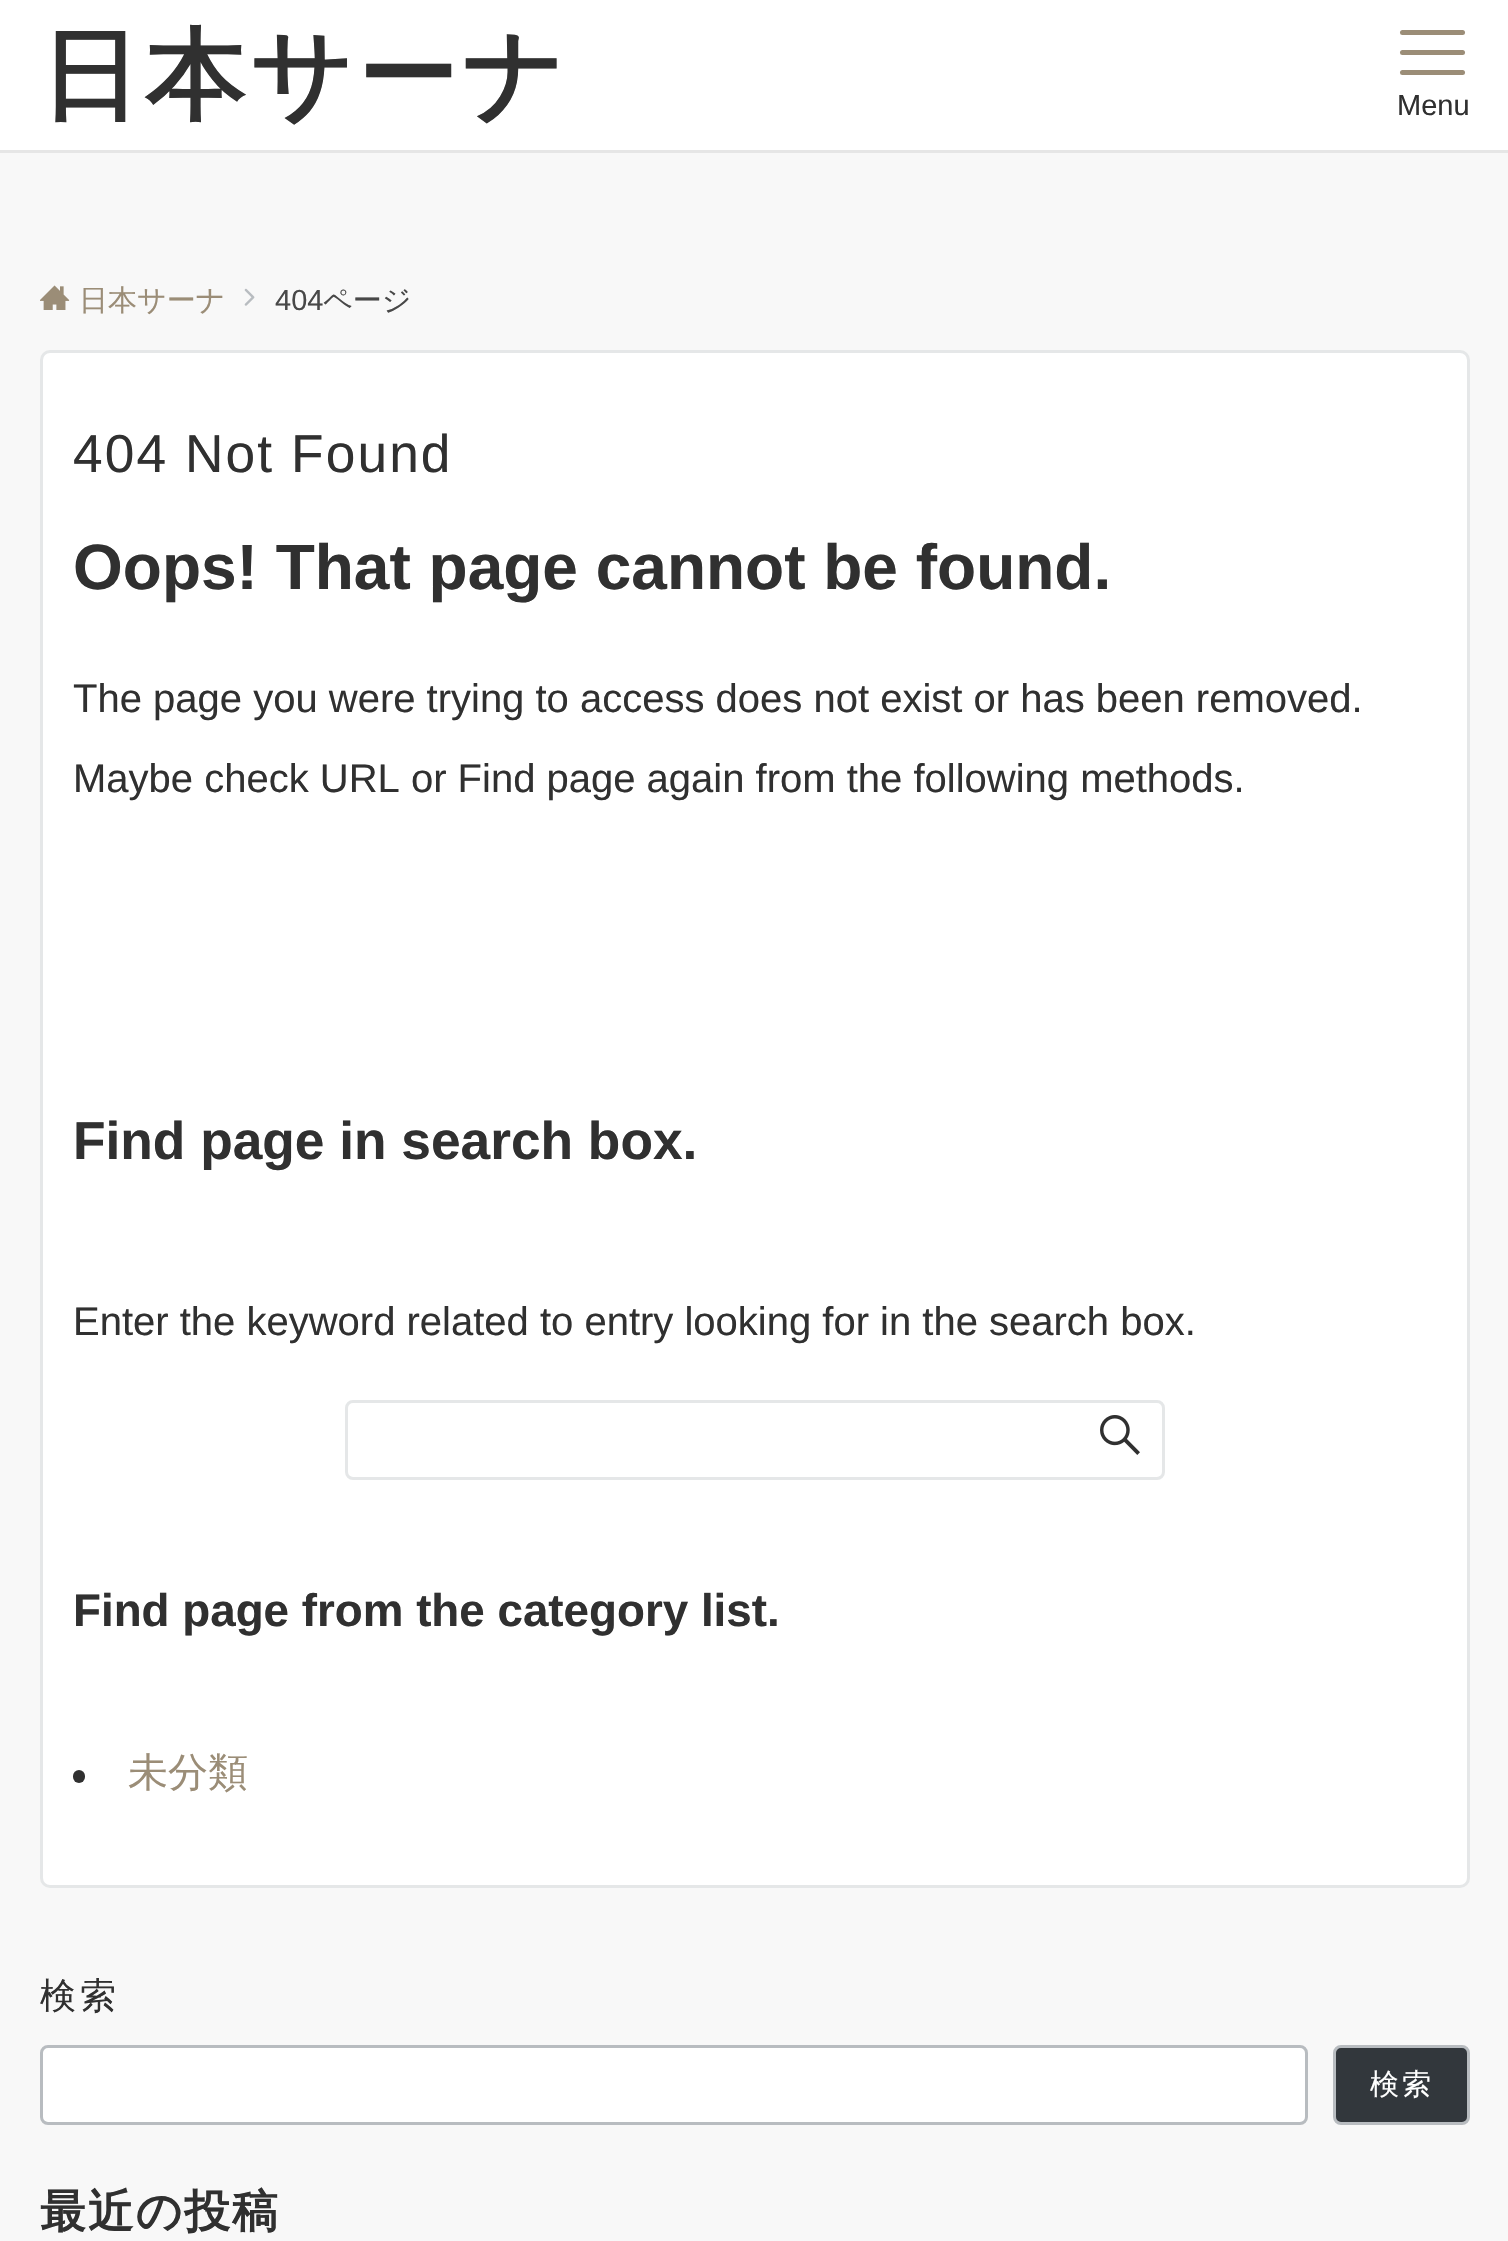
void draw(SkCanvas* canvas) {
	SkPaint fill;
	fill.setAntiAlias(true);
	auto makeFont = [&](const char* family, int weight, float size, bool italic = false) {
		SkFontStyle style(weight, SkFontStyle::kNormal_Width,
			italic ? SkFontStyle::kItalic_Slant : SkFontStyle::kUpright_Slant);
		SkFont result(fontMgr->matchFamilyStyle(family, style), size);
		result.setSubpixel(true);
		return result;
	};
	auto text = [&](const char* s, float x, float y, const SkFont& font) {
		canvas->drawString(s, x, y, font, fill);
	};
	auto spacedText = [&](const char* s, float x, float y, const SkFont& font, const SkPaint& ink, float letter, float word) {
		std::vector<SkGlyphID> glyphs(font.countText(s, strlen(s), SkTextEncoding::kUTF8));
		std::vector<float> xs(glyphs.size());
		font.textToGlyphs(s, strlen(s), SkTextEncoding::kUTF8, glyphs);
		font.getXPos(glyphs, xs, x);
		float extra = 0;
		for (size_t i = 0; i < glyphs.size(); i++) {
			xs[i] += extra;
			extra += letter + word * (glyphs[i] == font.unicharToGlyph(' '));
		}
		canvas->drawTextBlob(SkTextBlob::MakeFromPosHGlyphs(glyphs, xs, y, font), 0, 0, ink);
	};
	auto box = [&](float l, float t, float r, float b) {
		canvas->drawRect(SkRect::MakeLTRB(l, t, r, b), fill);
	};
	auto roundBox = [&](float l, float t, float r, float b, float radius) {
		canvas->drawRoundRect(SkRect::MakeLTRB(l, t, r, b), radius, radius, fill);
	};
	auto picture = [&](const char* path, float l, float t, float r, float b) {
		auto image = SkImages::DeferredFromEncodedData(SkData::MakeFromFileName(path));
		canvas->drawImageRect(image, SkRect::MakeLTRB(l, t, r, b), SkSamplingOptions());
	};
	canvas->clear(0xFFF8F8F8);
	fill.setColor(0xFFFFFFFF);
	box(0, 0, 1508, 150);
	fill.setColor(0xFFE6E6E6);
	box(0, 150, 1508, 153);
	fill.setColor(0xFF9B8D77);
	roundBox(1400, 30, 1465, 35, 2.5f);
	roundBox(1400, 50, 1465, 55, 2.5f);
	roundBox(1400, 70, 1465, 75, 2.5f);
	picture("image0.png", 40, 285, 70, 310);
	picture("image1.png", 244, 288, 255, 306);
	fill.setColor(0xFFFFFFFF);
	canvas->drawRoundRect(SkRect::MakeLTRB(41.5f, 351.5f, 1468.5f, 1886.5f), 8.5f, 8.5f, fill);
	fill.setStyle(SkPaint::kStroke_Style);
	fill.setStrokeWidth(3);
	fill.setColor(0xFFE5E7E8);
	canvas->drawRoundRect(SkRect::MakeLTRB(41.5f, 351.5f, 1468.5f, 1886.5f), 8.5f, 8.5f, fill);
	canvas->drawRoundRect(SkRect::MakeLTRB(346.5f, 1401.5f, 1163.5f, 1478.5f), 6.5f, 6.5f, fill);
	picture("image2.png", 1100, 1415, 1140, 1455);
	fill.setStyle(SkPaint::kFill_Style);
	fill.setColor(0xFF303030);
	roundBox(73, 1770, 85, 1783, 6);
	fill.setColor(0xFFFFFFFF);
	canvas->drawRoundRect(SkRect::MakeLTRB(41.5f, 2046.5f, 1306.5f, 2123.5f), 6.5f, 6.5f, fill);
	fill.setStyle(SkPaint::kStroke_Style);
	fill.setColor(0xFFB8BCC0);
	canvas->drawRoundRect(SkRect::MakeLTRB(41.5f, 2046.5f, 1306.5f, 2123.5f), 6.5f, 6.5f, fill);
	fill.setStyle(SkPaint::kFill_Style);
	fill.setColor(0xFF32373C);
	canvas->drawRoundRect(SkRect::MakeLTRB(1334.5f, 2046.5f, 1468.5f, 2123.5f), 6.5f, 6.5f, fill);
	fill.setStyle(SkPaint::kStroke_Style);
	fill.setColor(0xFFB8BCC0);
	canvas->drawRoundRect(SkRect::MakeLTRB(1334.5f, 2046.5f, 1468.5f, 2123.5f), 6.5f, 6.5f, fill);
	auto font1 = makeFont("WenQuanYi Zen Hei", 700, 100);
	fill.setStyle(SkPaint::kFill_Style);
	fill.setColor(0xFF303030);
	spacedText("日本サーナ", 40, 110, font1, fill, 5, 0);
	auto font2 = makeFont("Liberation Sans", 400, 29);
	text("Menu", 1397, 115, font2);
	auto font3 = makeFont("WenQuanYi Zen Hei", 500, 29);
	fill.setColor(0xFF9B8D77);
	text("日本サーナ", 79, 310, font3);
	fill.setColor(0xFF484848);
	text("404", 275, 310, font2);
	text("ページ", 323, 310, font3);
	auto font4 = makeFont("Liberation Sans", 400, 53.25f);
	fill.setColor(0xFF303030);
	spacedText("404 Not Found", 73, 472, font4, fill, 2.1f, 0);
	auto font5 = makeFont("Liberation Sans", 700, 64);
	text("Oops! That page cannot be found.", 73, 589, font5);
	auto font6 = makeFont("Liberation Sans", 400, 40);
	text("The page you were trying to access does not exist or has been removed.", 73, 712, font6);
	text("Maybe check URL or Find page again from the following methods.", 73, 792, font6);
	auto font7 = makeFont("Liberation Sans", 700, 53.25f);
	text("Find page in search box.", 73, 1159, font7);
	text("Enter the keyword related to entry looking for in the search box.", 73, 1335, font6);
	auto font8 = makeFont("Liberation Sans", 700, 45.75f);
	text("Find page from the category list.", 73, 1626, font8);
	auto font9 = makeFont("WenQuanYi Zen Hei", 500, 40);
	fill.setColor(0xFF9B8D77);
	text("未分類", 128, 1786, font9);
	auto font10 = makeFont("WenQuanYi Zen Hei", 500, 36);
	fill.setColor(0xFF303030);
	spacedText("検索", 40, 2008, font10, fill, 4, 0);
	fill.setColor(0xFFFFFFFF);
	spacedText("検索", 1370, 2094, font3, fill, 3, 0);
	auto font11 = makeFont("WenQuanYi Zen Hei", 700, 45.75f);
	fill.setColor(0xFF303030);
	spacedText("最近の投稿", 40, 2227, font11, fill, 2, 0);
}
